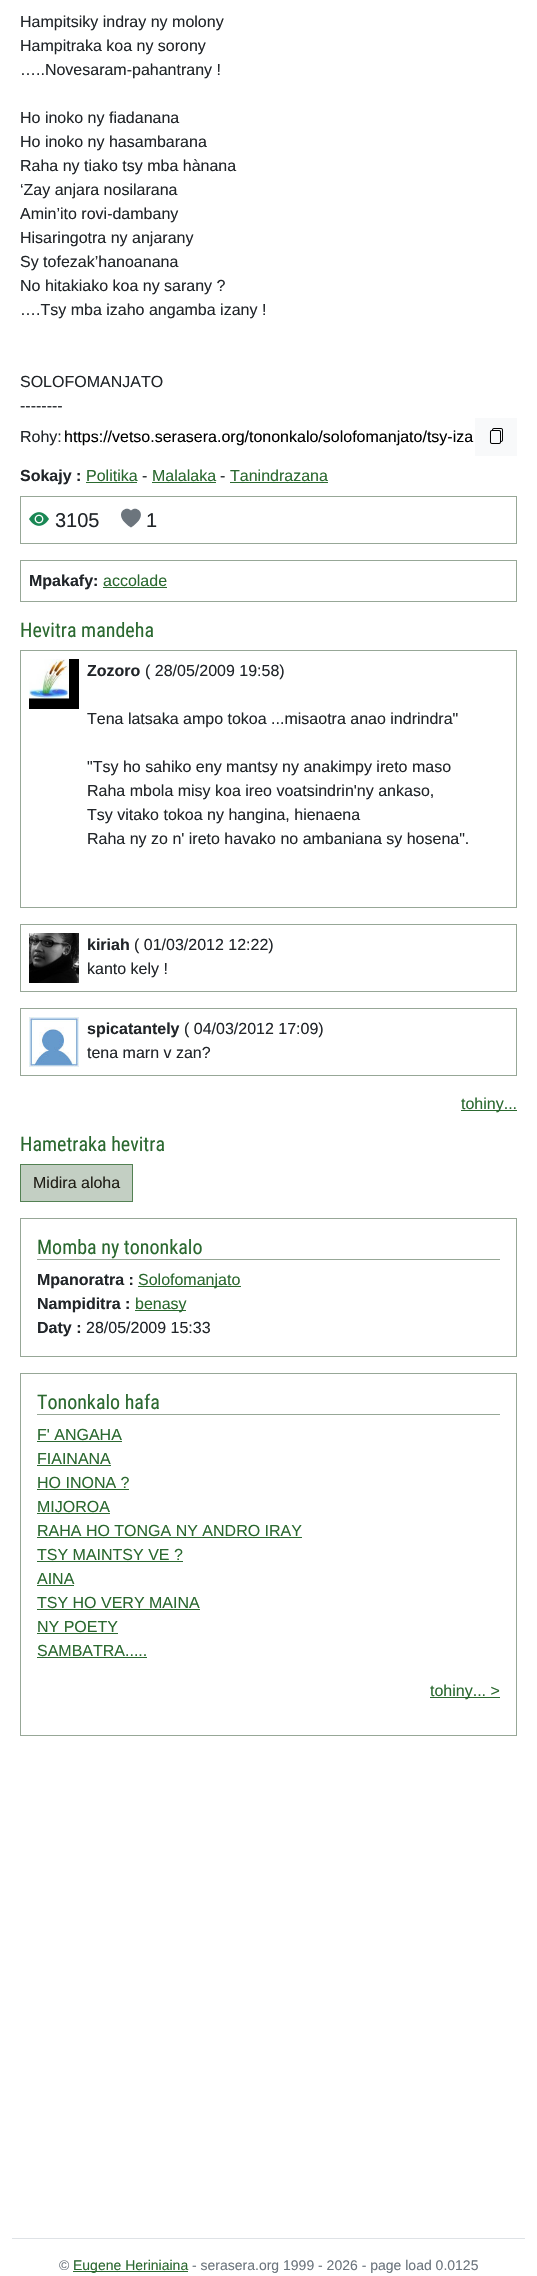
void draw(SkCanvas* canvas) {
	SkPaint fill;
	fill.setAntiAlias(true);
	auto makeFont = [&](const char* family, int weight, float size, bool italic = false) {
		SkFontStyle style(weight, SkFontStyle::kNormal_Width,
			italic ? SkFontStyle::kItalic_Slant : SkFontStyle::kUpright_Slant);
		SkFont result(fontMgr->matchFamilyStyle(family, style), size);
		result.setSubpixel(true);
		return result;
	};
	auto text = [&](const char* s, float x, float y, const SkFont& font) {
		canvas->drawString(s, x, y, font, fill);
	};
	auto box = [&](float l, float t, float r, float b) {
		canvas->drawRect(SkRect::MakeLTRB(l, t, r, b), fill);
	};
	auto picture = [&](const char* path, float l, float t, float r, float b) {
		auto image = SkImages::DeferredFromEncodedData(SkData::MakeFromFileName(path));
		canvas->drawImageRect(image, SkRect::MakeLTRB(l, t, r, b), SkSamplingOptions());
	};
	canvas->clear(0xFFFFFFFF);
	fill.setColor(0xFFF8F9FA);
	box(475, 418, 517, 456);
	picture("image0.png", 489, 428, 503, 444);
	fill.setColor(0xFF2B6930);
	box(86, 482, 137, 483);
	box(152, 482, 216, 483);
	box(230, 482, 328, 483);
	fill.setStyle(SkPaint::kStroke_Style);
	fill.setStrokeWidth(1);
	fill.setColor(0xFF97A797);
	canvas->drawRect(SkRect::MakeLTRB(20.5f, 496.5f, 516.5f, 543.5f), fill);
	picture("image1.png", 29, 512, 49, 526);
	fill.setStyle(SkPaint::kFill_Style);
	fill.setColor(0xFF6C757D);
	canvas->drawPath(SkPathBuilder().moveTo(131, 510.5f).cubicTo(137, 504.5f, 150, 515.5f, 131, 527.5f).cubicTo(112, 515.5f, 125, 504.5f, 131, 510.5f).close().detach(), fill);
	fill.setStyle(SkPaint::kStroke_Style);
	fill.setColor(0xFF97A797);
	canvas->drawRect(SkRect::MakeLTRB(20.5f, 560.5f, 516.5f, 601.5f), fill);
	fill.setStyle(SkPaint::kFill_Style);
	fill.setColor(0xFF2B6930);
	box(103, 587, 167, 588);
	fill.setStyle(SkPaint::kStroke_Style);
	fill.setColor(0xFF97A797);
	canvas->drawRect(SkRect::MakeLTRB(20.5f, 650.5f, 516.5f, 907.5f), fill);
	picture("image2.png", 29, 659, 79, 709);
	canvas->drawRect(SkRect::MakeLTRB(20.5f, 924.5f, 516.5f, 991.5f), fill);
	picture("image3.png", 29, 933, 79, 983);
	canvas->drawRect(SkRect::MakeLTRB(20.5f, 1008.5f, 516.5f, 1075.5f), fill);
	picture("image4.png", 29, 1017, 79, 1067);
	fill.setStyle(SkPaint::kFill_Style);
	fill.setColor(0xFF2B6930);
	box(461, 1110, 517, 1111);
	fill.setColor(0xFFC3CFC3);
	canvas->drawRect(SkRect::MakeLTRB(20.5f, 1164.5f, 132.5f, 1201.5f), fill);
	fill.setStyle(SkPaint::kStroke_Style);
	fill.setColor(0xFF538153);
	canvas->drawRect(SkRect::MakeLTRB(20.5f, 1164.5f, 132.5f, 1201.5f), fill);
	fill.setColor(0xFF97A797);
	canvas->drawRect(SkRect::MakeLTRB(20.5f, 1218.5f, 516.5f, 1356.5f), fill);
	fill.setStyle(SkPaint::kFill_Style);
	box(37, 1259, 500, 1260);
	fill.setColor(0xFF2B6930);
	box(138, 1286, 241, 1287);
	box(135, 1310, 186, 1311);
	fill.setStyle(SkPaint::kStroke_Style);
	fill.setColor(0xFF97A797);
	canvas->drawRect(SkRect::MakeLTRB(20.5f, 1373.5f, 516.5f, 1735.5f), fill);
	fill.setStyle(SkPaint::kFill_Style);
	box(37, 1414, 500, 1415);
	fill.setColor(0xFF2B6930);
	box(37, 1441, 122, 1442);
	box(37, 1465, 111, 1466);
	box(37, 1489, 129, 1490);
	box(37, 1513, 110, 1514);
	box(37, 1537, 302, 1538);
	box(37, 1561, 183, 1562);
	box(37, 1585, 74, 1586);
	box(37, 1609, 200, 1610);
	box(37, 1633, 118, 1634);
	box(37, 1657, 147, 1658);
	box(430, 1697, 500, 1698);
	fill.setColor(0xFFDEE2E6);
	box(12, 2238, 525, 2239);
	fill.setColor(0xFF2B6930);
	box(73, 2271, 188, 2272);
	auto font1 = makeFont("Liberation Sans", 400, 16);
	fill.setColor(0xFF212529);
	text("Hampitsiky indray ny molony", 20, 27, font1);
	text("Hampitraka koa ny sorony", 20, 51, font1);
	text("…..Novesaram-pahantrany !", 20, 75, font1);
	text("Ho inoko ny fiadanana", 20, 123, font1);
	text("Ho inoko ny hasambarana", 20, 147, font1);
	text("Raha ny tiako tsy mba hànana", 20, 171, font1);
	text("‘Zay anjara nosilarana", 20, 195, font1);
	text("Amin’ito rovi-dambany", 20, 219, font1);
	text("Hisaringotra ny anjarany", 20, 243, font1);
	text("Sy tofezak’hanoanana", 20, 267, font1);
	text("No hitakiako koa ny sarany ?", 20, 291, font1);
	text("….Tsy mba izaho angamba izany !", 20, 315, font1);
	text("SOLOFOMANJATO", 20, 387, font1);
	text("--------", 20, 411, font1);
	text("Rohy:", 20, 442, font1);
	fill.setColor(0xFF000000);
	text("https://vetso.serasera.org/tononkalo/solofomanjato/tsy-iza", 64, 442, font1);
	auto font2 = makeFont("Liberation Sans", 700, 16);
	fill.setColor(0xFF212529);
	text("Sokajy :", 20, 481, font2);
	fill.setColor(0xFF2B6930);
	text("Politika", 86, 481, font1);
	fill.setColor(0xFF212529);
	text("-", 142, 481, font1);
	fill.setColor(0xFF2B6930);
	text("Malalaka", 152, 481, font1);
	fill.setColor(0xFF212529);
	text("-", 220, 481, font1);
	fill.setColor(0xFF2B6930);
	text("Tanindrazana", 230, 481, font1);
	auto font3 = makeFont("Liberation Sans", 400, 20);
	fill.setColor(0xFF212529);
	text("3105", 55, 527, font3);
	text("1", 146, 527, font3);
	text("Mpakafy:", 29, 586, font2);
	fill.setColor(0xFF2B6930);
	text("accolade", 103, 586, font1);
	auto font4 = makeFont("Roboto Condensed", 400, 20);
	text("Hevitra mandeha", 20, 637, font4);
	fill.setColor(0xFF212529);
	text("Zozoro", 87, 676, font2);
	text("( 28/05/2009 19:58)", 145, 676, font1);
	text("Tena latsaka ampo tokoa ...misaotra anao indrindra\"", 87, 724, font1);
	text("\"Tsy ho sahiko eny mantsy ny anakimpy ireto maso", 87, 772, font1);
	text("Raha mbola misy koa ireo voatsindrin'ny ankaso,", 87, 796, font1);
	text("Tsy vitako tokoa ny hangina, hienaena", 87, 820, font1);
	text("Raha ny zo n' ireto havako no ambaniana sy hosena\".", 87, 844, font1);
	text("kiriah", 87, 950, font2);
	text("( 01/03/2012 12:22)", 134, 950, font1);
	text("kanto kely !", 87, 974, font1);
	text("spicatantely", 87, 1034, font2);
	text("( 04/03/2012 17:09)", 184, 1034, font1);
	text("tena marn v zan?", 87, 1058, font1);
	fill.setColor(0xFF2B6930);
	text("tohiny...", 461, 1109, font1);
	text("Hametraka hevitra", 20, 1151, font4);
	fill.setColor(0xFF201E16);
	text("Midira aloha", 33, 1188, font1);
	fill.setColor(0xFF2B6930);
	text("Momba ny tononkalo", 37, 1254, font4);
	fill.setColor(0xFF212529);
	text("Mpanoratra :", 37, 1285, font2);
	fill.setColor(0xFF2B6930);
	text("Solofomanjato", 138, 1285, font1);
	fill.setColor(0xFF212529);
	text("Nampiditra :", 37, 1309, font2);
	fill.setColor(0xFF2B6930);
	text("benasy", 135, 1309, font1);
	fill.setColor(0xFF212529);
	text("Daty :", 37, 1333, font2);
	text("28/05/2009 15:33", 86, 1333, font1);
	fill.setColor(0xFF2B6930);
	text("Tononkalo hafa", 37, 1409, font4);
	text("F' ANGAHA", 37, 1440, font1);
	text("FIAINANA", 37, 1464, font1);
	text("HO INONA ?", 37, 1488, font1);
	text("MIJOROA", 37, 1512, font1);
	text("RAHA HO TONGA NY ANDRO IRAY", 37, 1536, font1);
	text("TSY MAINTSY VE ?", 37, 1560, font1);
	text("AINA", 37, 1584, font1);
	text("TSY HO VERY MAINA", 37, 1608, font1);
	text("NY POETY", 37, 1632, font1);
	text("SAMBATRA.....", 37, 1656, font1);
	text("tohiny... >", 430, 1696, font1);
	auto font5 = makeFont("Liberation Sans", 400, 14);
	fill.setColor(0xFF6C757D);
	text("©", 59, 2270, font5);
	fill.setColor(0xFF2B6930);
	text("Eugene Heriniaina", 73, 2270, font5);
	fill.setColor(0xFF6C757D);
	text("- serasera.org 1999 - 2026 - page load 0.0125", 192, 2270, font5);
}
